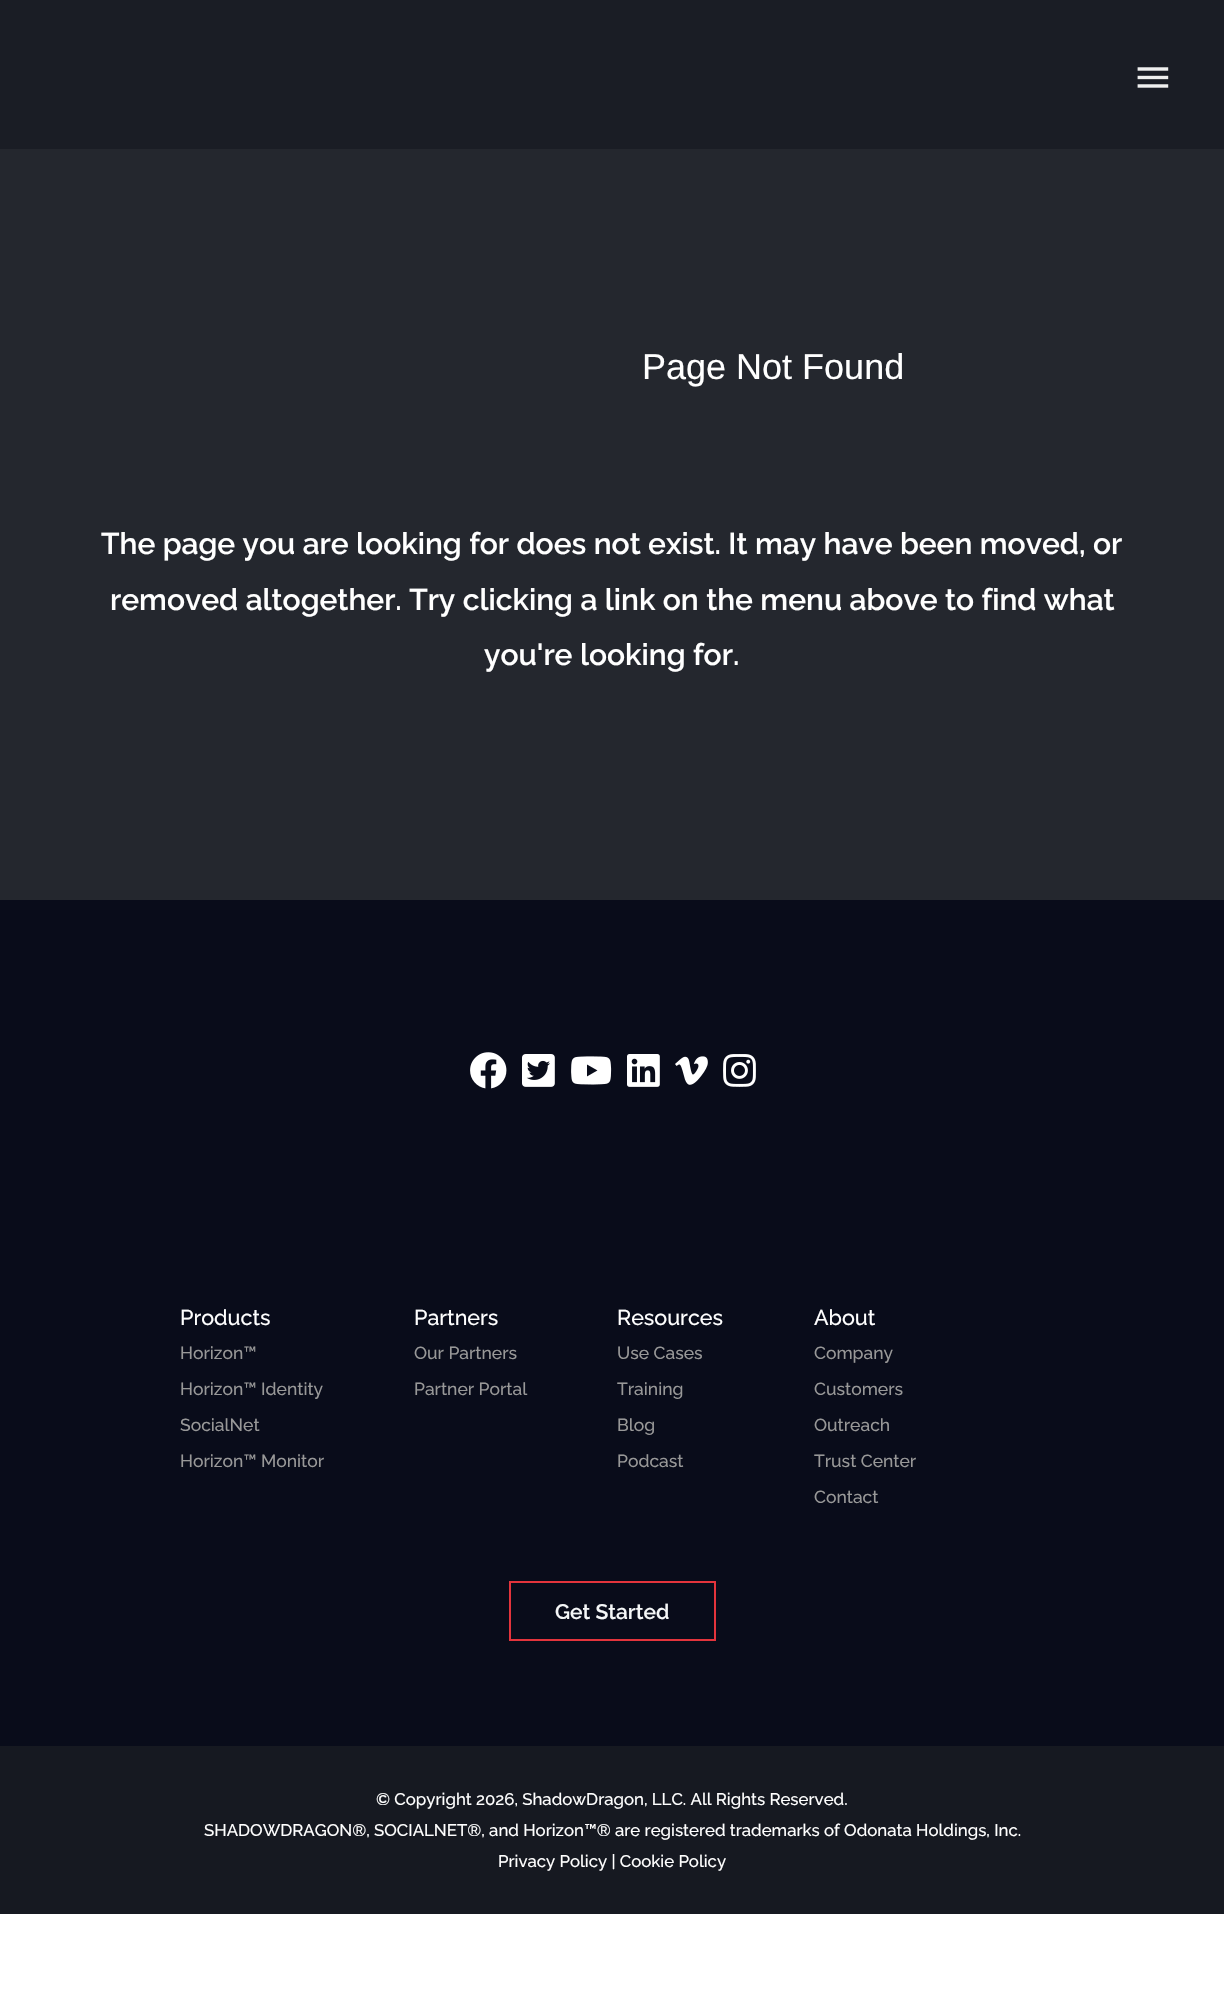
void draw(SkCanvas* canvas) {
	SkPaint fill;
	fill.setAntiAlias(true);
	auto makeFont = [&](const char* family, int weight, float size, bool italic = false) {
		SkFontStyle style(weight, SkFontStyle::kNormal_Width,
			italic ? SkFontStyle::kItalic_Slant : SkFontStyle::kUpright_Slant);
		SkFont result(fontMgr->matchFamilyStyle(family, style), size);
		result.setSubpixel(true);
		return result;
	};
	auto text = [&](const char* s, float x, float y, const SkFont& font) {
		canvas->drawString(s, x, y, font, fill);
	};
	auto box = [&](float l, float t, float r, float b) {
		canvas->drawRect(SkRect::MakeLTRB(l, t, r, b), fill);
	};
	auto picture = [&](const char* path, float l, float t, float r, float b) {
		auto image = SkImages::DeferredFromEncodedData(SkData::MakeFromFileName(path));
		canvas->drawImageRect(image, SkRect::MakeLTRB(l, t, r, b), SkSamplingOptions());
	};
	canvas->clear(0xFFFFFFFF);
	fill.setColor(0xFF1A1D25);
	box(0, 0, 1224, 149);
	picture("image0.png", 1137, 67, 1169, 88);
	fill.setColor(0xFF24272E);
	box(0, 149, 1224, 900);
	fill.setColor(0xFF090C1A);
	box(0, 900, 1224, 1746);
	picture("image1.png", 470, 1052, 507, 1089);
	picture("image2.png", 522, 1054, 555, 1087);
	picture("image3.png", 571, 1056, 612, 1085);
	picture("image4.png", 627, 1054, 660, 1087);
	picture("image5.png", 675, 1056, 708, 1085);
	picture("image6.png", 723, 1054, 756, 1087);
	fill.setStyle(SkPaint::kStroke_Style);
	fill.setStrokeWidth(2);
	fill.setColor(0xFFE3343C);
	canvas->drawRect(SkRect::MakeLTRB(510, 1582, 715, 1640), fill);
	fill.setStyle(SkPaint::kFill_Style);
	fill.setColor(0xFF161921);
	box(0, 1746, 1224, 1914);
	auto font1 = makeFont("Liberation Sans", 400, 36);
	fill.setColor(0xFFFFFFFF);
	text("Page Not Found", 642, 379, font1);
	auto font2 = makeFont("Raleway", 600, 30);
	text("The page you are looking for does not exist. It may have been moved, or", 101, 554, font2);
	text("removed altogether. Try clicking a link on the menu above to find what", 110, 610, font2);
	text("you're looking for.", 484, 665, font2);
	auto font3 = makeFont("Raleway", 500, 21.5f);
	text("Products", 180, 1325, font3);
	auto font4 = makeFont("Raleway", 500, 17.5f);
	fill.setColor(0xFF989898);
	text("Horizon™", 180, 1359, font4);
	text("Horizon™ Identity", 180, 1395, font4);
	text("SocialNet", 180, 1431, font4);
	text("Horizon™ Monitor", 180, 1467, font4);
	fill.setColor(0xFFFFFFFF);
	text("Partners", 414, 1325, font3);
	fill.setColor(0xFF989898);
	text("Our Partners", 414, 1359, font4);
	text("Partner Portal", 414, 1395, font4);
	fill.setColor(0xFFFFFFFF);
	text("Resources", 617, 1325, font3);
	fill.setColor(0xFF989898);
	text("Use Cases", 617, 1359, font4);
	text("Training", 617, 1395, font4);
	text("Blog", 617, 1431, font4);
	text("Podcast", 617, 1467, font4);
	fill.setColor(0xFFFFFFFF);
	text("About", 814, 1325, font3);
	fill.setColor(0xFF989898);
	text("Company", 814, 1359, font4);
	text("Customers", 814, 1395, font4);
	text("Outreach", 814, 1431, font4);
	text("Trust Center", 814, 1467, font4);
	text("Contact", 814, 1503, font4);
	auto font5 = makeFont("Raleway", 600, 21);
	fill.setColor(0xFFF5F7F8);
	text("Get Started", 555, 1619, font5);
	auto font6 = makeFont("Raleway", 500, 16.8f);
	fill.setColor(0xFFFFFFFF);
	text("© Copyright 2026, ShadowDragon, LLC. All Rights Reserved.", 376, 1805, font6);
	text("SHADOWDRAGON®, SOCIALNET®, and Horizon™® are registered trademarks of Odonata Holdings, Inc.", 204, 1836, font6);
	text("Privacy Policy | Cookie Policy", 498, 1867, font6);
}
